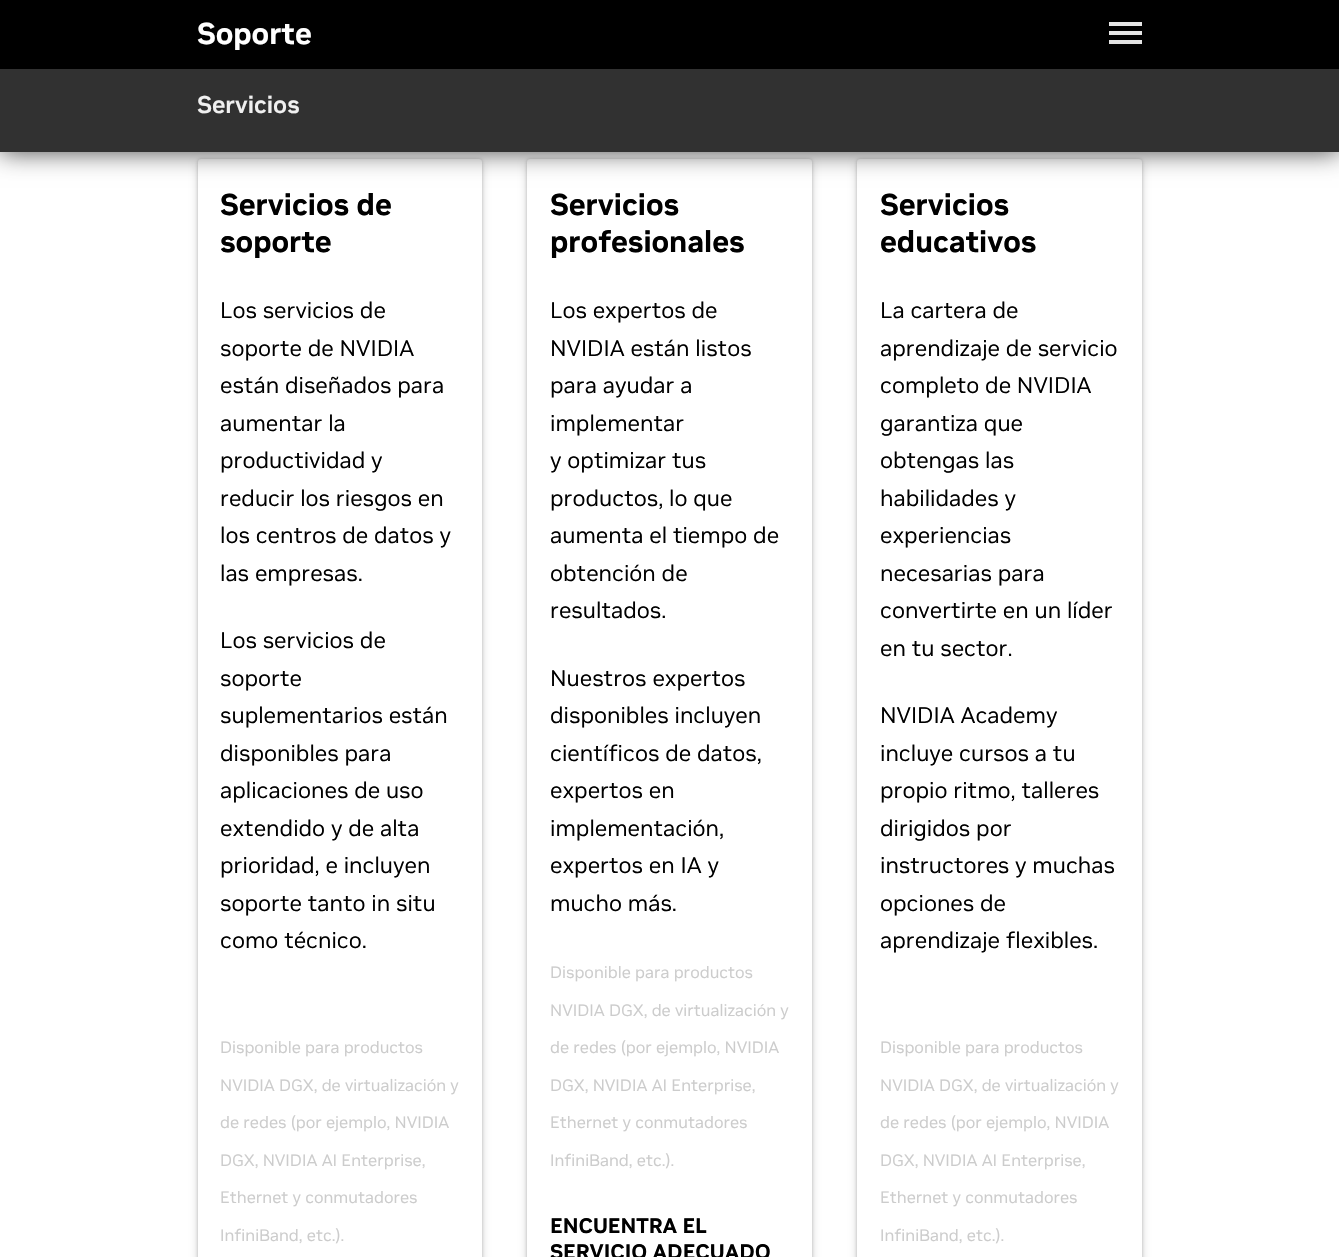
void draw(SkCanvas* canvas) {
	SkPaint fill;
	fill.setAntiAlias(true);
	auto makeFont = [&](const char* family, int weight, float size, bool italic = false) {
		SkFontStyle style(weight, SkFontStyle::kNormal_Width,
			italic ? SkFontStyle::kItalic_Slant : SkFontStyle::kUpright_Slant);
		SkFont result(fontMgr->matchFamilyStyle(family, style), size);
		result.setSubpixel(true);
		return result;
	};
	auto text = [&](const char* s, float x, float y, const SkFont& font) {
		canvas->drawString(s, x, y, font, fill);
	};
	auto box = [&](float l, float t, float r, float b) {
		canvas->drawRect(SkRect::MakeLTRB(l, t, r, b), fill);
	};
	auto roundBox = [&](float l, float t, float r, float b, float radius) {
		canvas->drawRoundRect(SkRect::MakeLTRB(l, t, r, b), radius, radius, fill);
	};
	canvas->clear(0xFFFFFFFF);
	fill.setColor(0xFF000000);
	box(0, 0, 1339, 69);
	fill.setColor(0xFFE6E6E6);
	box(1109, 22, 1142, 26);
	box(1109, 31, 1142, 35);
	box(1109, 40, 1142, 44);
	fill.setColor(0x30000000);
	fill.setMaskFilter(SkMaskFilter::MakeBlur(kNormal_SkBlurStyle, 4.5f));
	canvas->drawRoundRect(SkRect::MakeLTRB(198, 162, 482, 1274), 3, 3, fill);
	fill.setMaskFilter(nullptr);
	fill.setMaskFilter(SkMaskFilter::MakeBlur(kNormal_SkBlurStyle, 1.5f));
	canvas->drawRoundRect(SkRect::MakeLTRB(198, 159, 482, 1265), 3, 3, fill);
	fill.setMaskFilter(nullptr);
	fill.setColor(0xFFFFFFFF);
	roundBox(198, 159, 482, 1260, 3);
	fill.setColor(0x30000000);
	fill.setMaskFilter(SkMaskFilter::MakeBlur(kNormal_SkBlurStyle, 4.5f));
	canvas->drawRoundRect(SkRect::MakeLTRB(527, 162, 812, 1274), 3, 3, fill);
	fill.setMaskFilter(nullptr);
	fill.setMaskFilter(SkMaskFilter::MakeBlur(kNormal_SkBlurStyle, 1.5f));
	canvas->drawRoundRect(SkRect::MakeLTRB(527, 159, 812, 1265), 3, 3, fill);
	fill.setMaskFilter(nullptr);
	fill.setColor(0xFFFFFFFF);
	roundBox(527, 159, 812, 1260, 3);
	fill.setColor(0x30000000);
	fill.setMaskFilter(SkMaskFilter::MakeBlur(kNormal_SkBlurStyle, 4.5f));
	canvas->drawRoundRect(SkRect::MakeLTRB(857, 162, 1142, 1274), 3, 3, fill);
	fill.setMaskFilter(nullptr);
	fill.setMaskFilter(SkMaskFilter::MakeBlur(kNormal_SkBlurStyle, 1.5f));
	canvas->drawRoundRect(SkRect::MakeLTRB(857, 159, 1142, 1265), 3, 3, fill);
	fill.setMaskFilter(nullptr);
	fill.setColor(0xFFFFFFFF);
	roundBox(857, 159, 1142, 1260, 3);
	fill.setColor(0xB8000000);
	fill.setMaskFilter(SkMaskFilter::MakeBlur(kNormal_SkBlurStyle, 12));
	canvas->drawRect(SkRect::MakeLTRB(0, 69, 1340, 152), fill);
	fill.setMaskFilter(nullptr);
	fill.setColor(0xFF313131);
	box(0, 69, 1339, 152);
	auto font1 = makeFont("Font", 700, 30);
	fill.setColor(0xFFFFFFFF);
	text("Soporte", 197, 44, font1);
	auto font2 = makeFont("Font", 600, 24);
	fill.setColor(0xFFF0F0F0);
	text("Servicios", 197, 113, font2);
	fill.setColor(0xFF000000);
	text("Servicios de", 220, 215, font1);
	text("soporte", 220, 252, font1);
	auto font3 = makeFont("Font", 400, 22.5f);
	text("Los servicios de", 220, 318, font3);
	text("soporte de NVIDIA", 220, 356, font3);
	text("están diseñados para", 220, 393, font3);
	text("aumentar la", 220, 431, font3);
	text("productividad y", 220, 468, font3);
	text("reducir los riesgos en", 220, 506, font3);
	text("los centros de datos y", 220, 543, font3);
	text("las empresas.", 220, 581, font3);
	text("Los servicios de", 220, 648, font3);
	text("soporte", 220, 686, font3);
	text("suplementarios están", 220, 723, font3);
	text("disponibles para", 220, 761, font3);
	text("aplicaciones de uso", 220, 798, font3);
	text("extendido y de alta", 220, 836, font3);
	text("prioridad, e incluyen", 220, 873, font3);
	text("soporte tanto in situ", 220, 911, font3);
	text("como técnico.", 220, 948, font3);
	auto font4 = makeFont("Font", 400, 16.5f);
	fill.setColor(0xFFCCCCCC);
	text("Disponible para productos", 220, 1053, font4);
	text("NVIDIA DGX, de virtualización y", 220, 1091, font4);
	text("de redes (por ejemplo, NVIDIA", 220, 1128, font4);
	text("DGX, NVIDIA AI Enterprise,", 220, 1166, font4);
	text("Ethernet y conmutadores", 220, 1203, font4);
	text("InfiniBand, etc.).", 220, 1241, font4);
	fill.setColor(0xFF000000);
	text("Servicios", 550, 215, font1);
	text("profesionales", 550, 252, font1);
	text("Los expertos de", 550, 318, font3);
	text("NVIDIA están listos", 550, 356, font3);
	text("para ayudar a", 550, 393, font3);
	text("implementar", 550, 431, font3);
	text("y optimizar tus", 550, 468, font3);
	text("productos, lo que", 550, 506, font3);
	text("aumenta el tiempo de", 550, 543, font3);
	text("obtención de", 550, 581, font3);
	text("resultados.", 550, 618, font3);
	text("Nuestros expertos", 550, 686, font3);
	text("disponibles incluyen", 550, 723, font3);
	text("científicos de datos,", 550, 761, font3);
	text("expertos en", 550, 798, font3);
	text("implementación,", 550, 836, font3);
	text("expertos en IA y", 550, 873, font3);
	text("mucho más.", 550, 911, font3);
	fill.setColor(0xFFCCCCCC);
	text("Disponible para productos", 550, 978, font4);
	text("NVIDIA DGX, de virtualización y", 550, 1016, font4);
	text("de redes (por ejemplo, NVIDIA", 550, 1053, font4);
	text("DGX, NVIDIA AI Enterprise,", 550, 1091, font4);
	text("Ethernet y conmutadores", 550, 1128, font4);
	text("InfiniBand, etc.).", 550, 1166, font4);
	auto font5 = makeFont("Font", 700, 21);
	fill.setColor(0xFF000000);
	text("ENCUENTRA EL", 550, 1233, font5);
	text("SERVICIO ADECUADO", 550, 1259, font5);
	text("Servicios", 880, 215, font1);
	text("educativos", 880, 252, font1);
	text("La cartera de", 880, 318, font3);
	text("aprendizaje de servicio", 880, 356, font3);
	text("completo de NVIDIA", 880, 393, font3);
	text("garantiza que", 880, 431, font3);
	text("obtengas las", 880, 468, font3);
	text("habilidades y", 880, 506, font3);
	text("experiencias", 880, 543, font3);
	text("necesarias para", 880, 581, font3);
	text("convertirte en un líder", 880, 618, font3);
	text("en tu sector.", 880, 656, font3);
	text("NVIDIA Academy", 880, 723, font3);
	text("incluye cursos a tu", 880, 761, font3);
	text("propio ritmo, talleres", 880, 798, font3);
	text("dirigidos por", 880, 836, font3);
	text("instructores y muchas", 880, 873, font3);
	text("opciones de", 880, 911, font3);
	text("aprendizaje flexibles.", 880, 948, font3);
	fill.setColor(0xFFCCCCCC);
	text("Disponible para productos", 880, 1053, font4);
	text("NVIDIA DGX, de virtualización y", 880, 1091, font4);
	text("de redes (por ejemplo, NVIDIA", 880, 1128, font4);
	text("DGX, NVIDIA AI Enterprise,", 880, 1166, font4);
	text("Ethernet y conmutadores", 880, 1203, font4);
	text("InfiniBand, etc.).", 880, 1241, font4);
}
